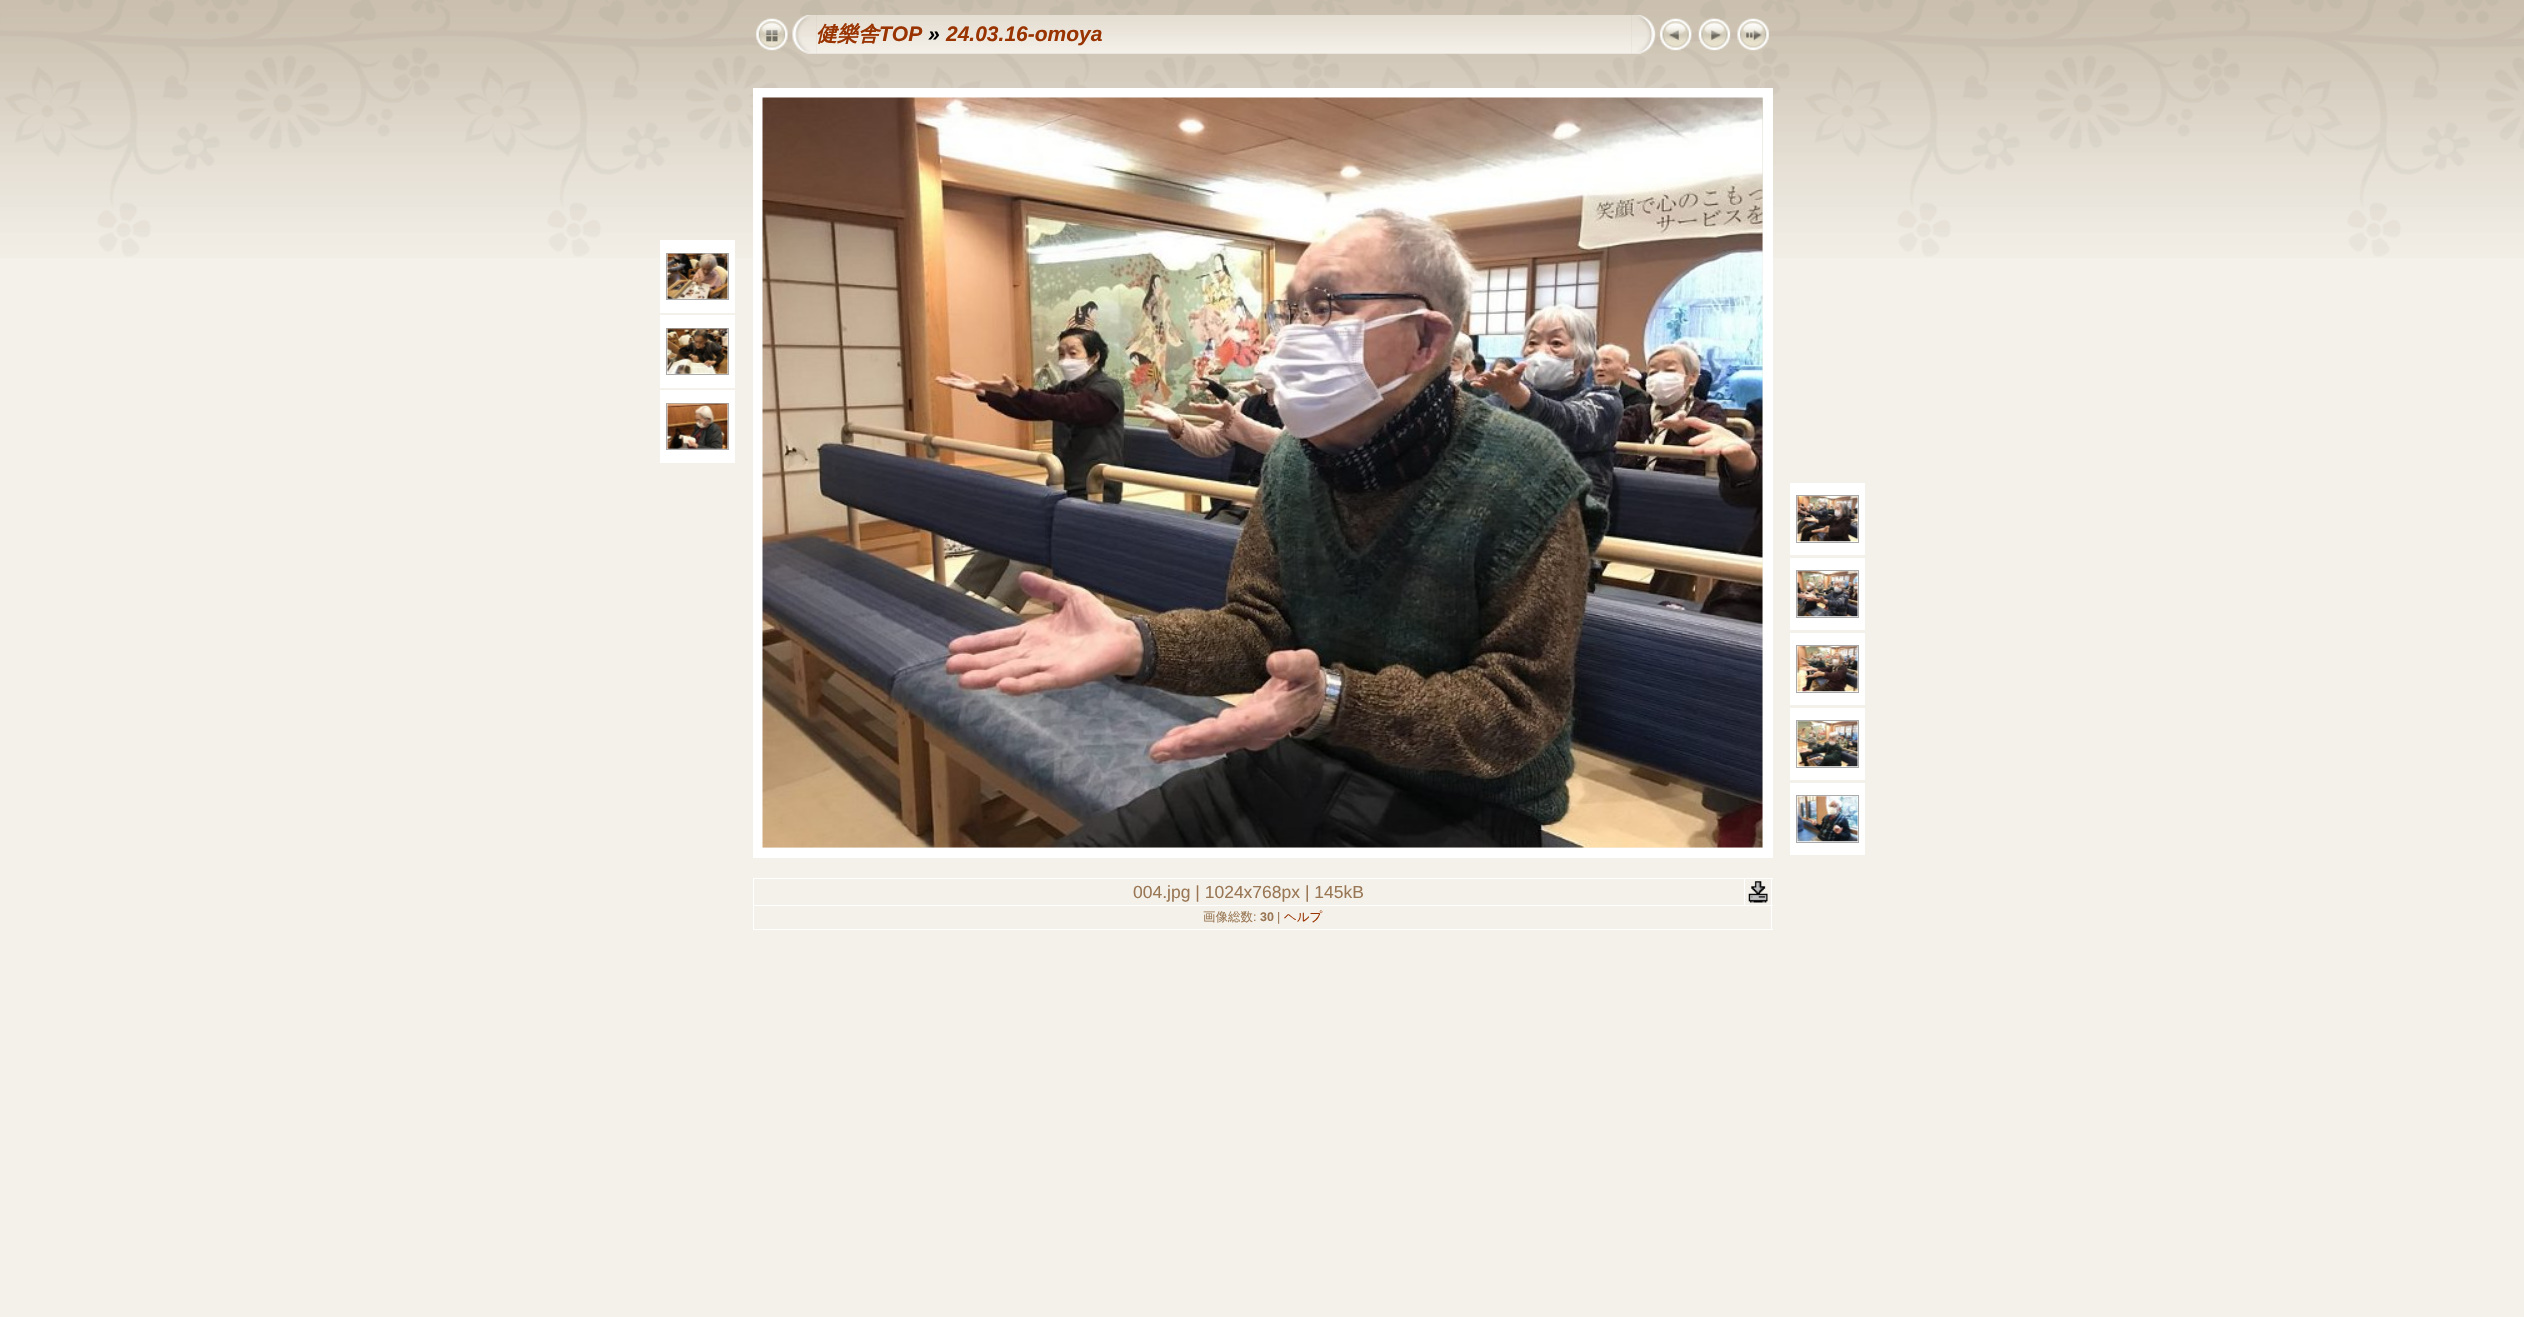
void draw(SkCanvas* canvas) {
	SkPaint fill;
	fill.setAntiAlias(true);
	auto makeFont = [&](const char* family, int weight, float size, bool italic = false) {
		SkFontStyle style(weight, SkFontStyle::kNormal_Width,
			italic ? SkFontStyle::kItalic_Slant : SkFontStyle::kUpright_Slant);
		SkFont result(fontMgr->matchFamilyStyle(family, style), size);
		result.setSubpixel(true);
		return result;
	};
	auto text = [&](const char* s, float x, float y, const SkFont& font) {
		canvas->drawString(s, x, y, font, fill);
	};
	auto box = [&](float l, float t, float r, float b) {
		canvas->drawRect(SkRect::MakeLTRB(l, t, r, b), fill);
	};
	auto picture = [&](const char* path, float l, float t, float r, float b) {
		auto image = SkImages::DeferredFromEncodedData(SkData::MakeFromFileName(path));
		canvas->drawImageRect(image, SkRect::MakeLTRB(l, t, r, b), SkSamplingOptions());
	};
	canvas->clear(0xFFF4F1EA);
	picture("image0.png", 0, 0, 2524, 258);
	picture("image1.png", 756, 18, 788, 51);
	picture("image3.png", 816, 15, 1632, 54);
	picture("image2.png", 792, 15, 817, 54);
	picture("image4.png", 1631, 15, 1656, 54);
	picture("image5.png", 1659, 18, 1692, 51);
	picture("image6.png", 1698, 18, 1731, 51);
	picture("image7.png", 1737, 18, 1769, 51);
	fill.setColor(0xFFFFFFFF);
	box(660, 240, 735, 313);
	fill.setStyle(SkPaint::kStroke_Style);
	fill.setStrokeWidth(1);
	fill.setColor(0xFFAAAAAA);
	canvas->drawRect(SkRect::MakeLTRB(666.5f, 253.5f, 728.5f, 299.5f), fill);
	picture("image8.png", 667, 253, 728, 299);
	fill.setStyle(SkPaint::kFill_Style);
	fill.setColor(0xFFFFFFFF);
	box(660, 315, 735, 388);
	fill.setStyle(SkPaint::kStroke_Style);
	fill.setColor(0xFFAAAAAA);
	canvas->drawRect(SkRect::MakeLTRB(666.5f, 328.5f, 728.5f, 374.5f), fill);
	picture("image9.png", 667, 328, 728, 374);
	fill.setStyle(SkPaint::kFill_Style);
	fill.setColor(0xFFFFFFFF);
	box(660, 390, 735, 463);
	fill.setStyle(SkPaint::kStroke_Style);
	fill.setColor(0xFFAAAAAA);
	canvas->drawRect(SkRect::MakeLTRB(666.5f, 403.5f, 728.5f, 449.5f), fill);
	picture("image10.png", 667, 403, 728, 449);
	fill.setStrokeWidth(10);
	fill.setColor(0xFFFFFFFF);
	canvas->drawRect(SkRect::MakeLTRB(758, 93, 1768, 853), fill);
	picture("image11.png", 762, 97, 1763, 848);
	fill.setStyle(SkPaint::kFill_Style);
	box(1790, 483, 1865, 555);
	fill.setStyle(SkPaint::kStroke_Style);
	fill.setStrokeWidth(1);
	fill.setColor(0xFFAAAAAA);
	canvas->drawRect(SkRect::MakeLTRB(1796.5f, 495.5f, 1858.5f, 542.5f), fill);
	picture("image12.png", 1797, 496, 1858, 542);
	fill.setStyle(SkPaint::kFill_Style);
	fill.setColor(0xFFFFFFFF);
	box(1790, 558, 1865, 630);
	fill.setStyle(SkPaint::kStroke_Style);
	fill.setColor(0xFFAAAAAA);
	canvas->drawRect(SkRect::MakeLTRB(1796.5f, 570.5f, 1858.5f, 617.5f), fill);
	picture("image13.png", 1797, 571, 1858, 617);
	fill.setStyle(SkPaint::kFill_Style);
	fill.setColor(0xFFFFFFFF);
	box(1790, 633, 1865, 705);
	fill.setStyle(SkPaint::kStroke_Style);
	fill.setColor(0xFFAAAAAA);
	canvas->drawRect(SkRect::MakeLTRB(1796.5f, 645.5f, 1858.5f, 692.5f), fill);
	picture("image14.png", 1797, 646, 1858, 692);
	fill.setStyle(SkPaint::kFill_Style);
	fill.setColor(0xFFFFFFFF);
	box(1790, 708, 1865, 780);
	fill.setStyle(SkPaint::kStroke_Style);
	fill.setColor(0xFFAAAAAA);
	canvas->drawRect(SkRect::MakeLTRB(1796.5f, 720.5f, 1858.5f, 767.5f), fill);
	picture("image15.png", 1797, 721, 1858, 767);
	fill.setStyle(SkPaint::kFill_Style);
	fill.setColor(0xFFFFFFFF);
	box(1790, 783, 1865, 855);
	fill.setStyle(SkPaint::kStroke_Style);
	fill.setColor(0xFFAAAAAA);
	canvas->drawRect(SkRect::MakeLTRB(1796.5f, 795.5f, 1858.5f, 842.5f), fill);
	picture("image16.png", 1797, 796, 1858, 842);
	fill.setStyle(SkPaint::kFill_Style);
	fill.setColor(0xFFFFFFFF);
	box(753, 878, 1773, 879);
	box(1771, 878, 1772, 930);
	box(753, 929, 1773, 930);
	box(753, 878, 754, 930);
	box(753, 905, 1773, 906);
	box(1744, 878, 1745, 906);
	picture("image17.png", 1748, 881, 1768, 903);
	auto font1 = makeFont("WenQuanYi Zen Hei", 700, 21, true);
	fill.setColor(0xFF993300);
	text("健樂舎", 816, 41, font1);
	auto font2 = makeFont("Liberation Sans", 700, 21, true);
	text("TOP", 879, 41, font2);
	fill.setColor(0xFF000000);
	text("»", 928, 41, font2);
	fill.setColor(0xFF993300);
	text("24.03.16-omoya", 946, 41, font2);
	auto font3 = makeFont("Liberation Sans", 400, 17.5f);
	fill.setColor(0xFF997755);
	text("004.jpg | 1024x768px | 145kB", 1133, 898, font3);
	auto font4 = makeFont("WenQuanYi Zen Hei", 500, 12.5f);
	text("画像総数", 1203, 921, font4);
	auto font5 = makeFont("Liberation Sans", 400, 12.5f);
	text(":", 1253, 921, font5);
	auto font6 = makeFont("Liberation Sans", 700, 12.5f);
	text("30", 1260, 921, font6);
	text("|", 1277, 921, font5);
	fill.setColor(0xFF993300);
	text("ヘルプ", 1284, 921, font4);
}
